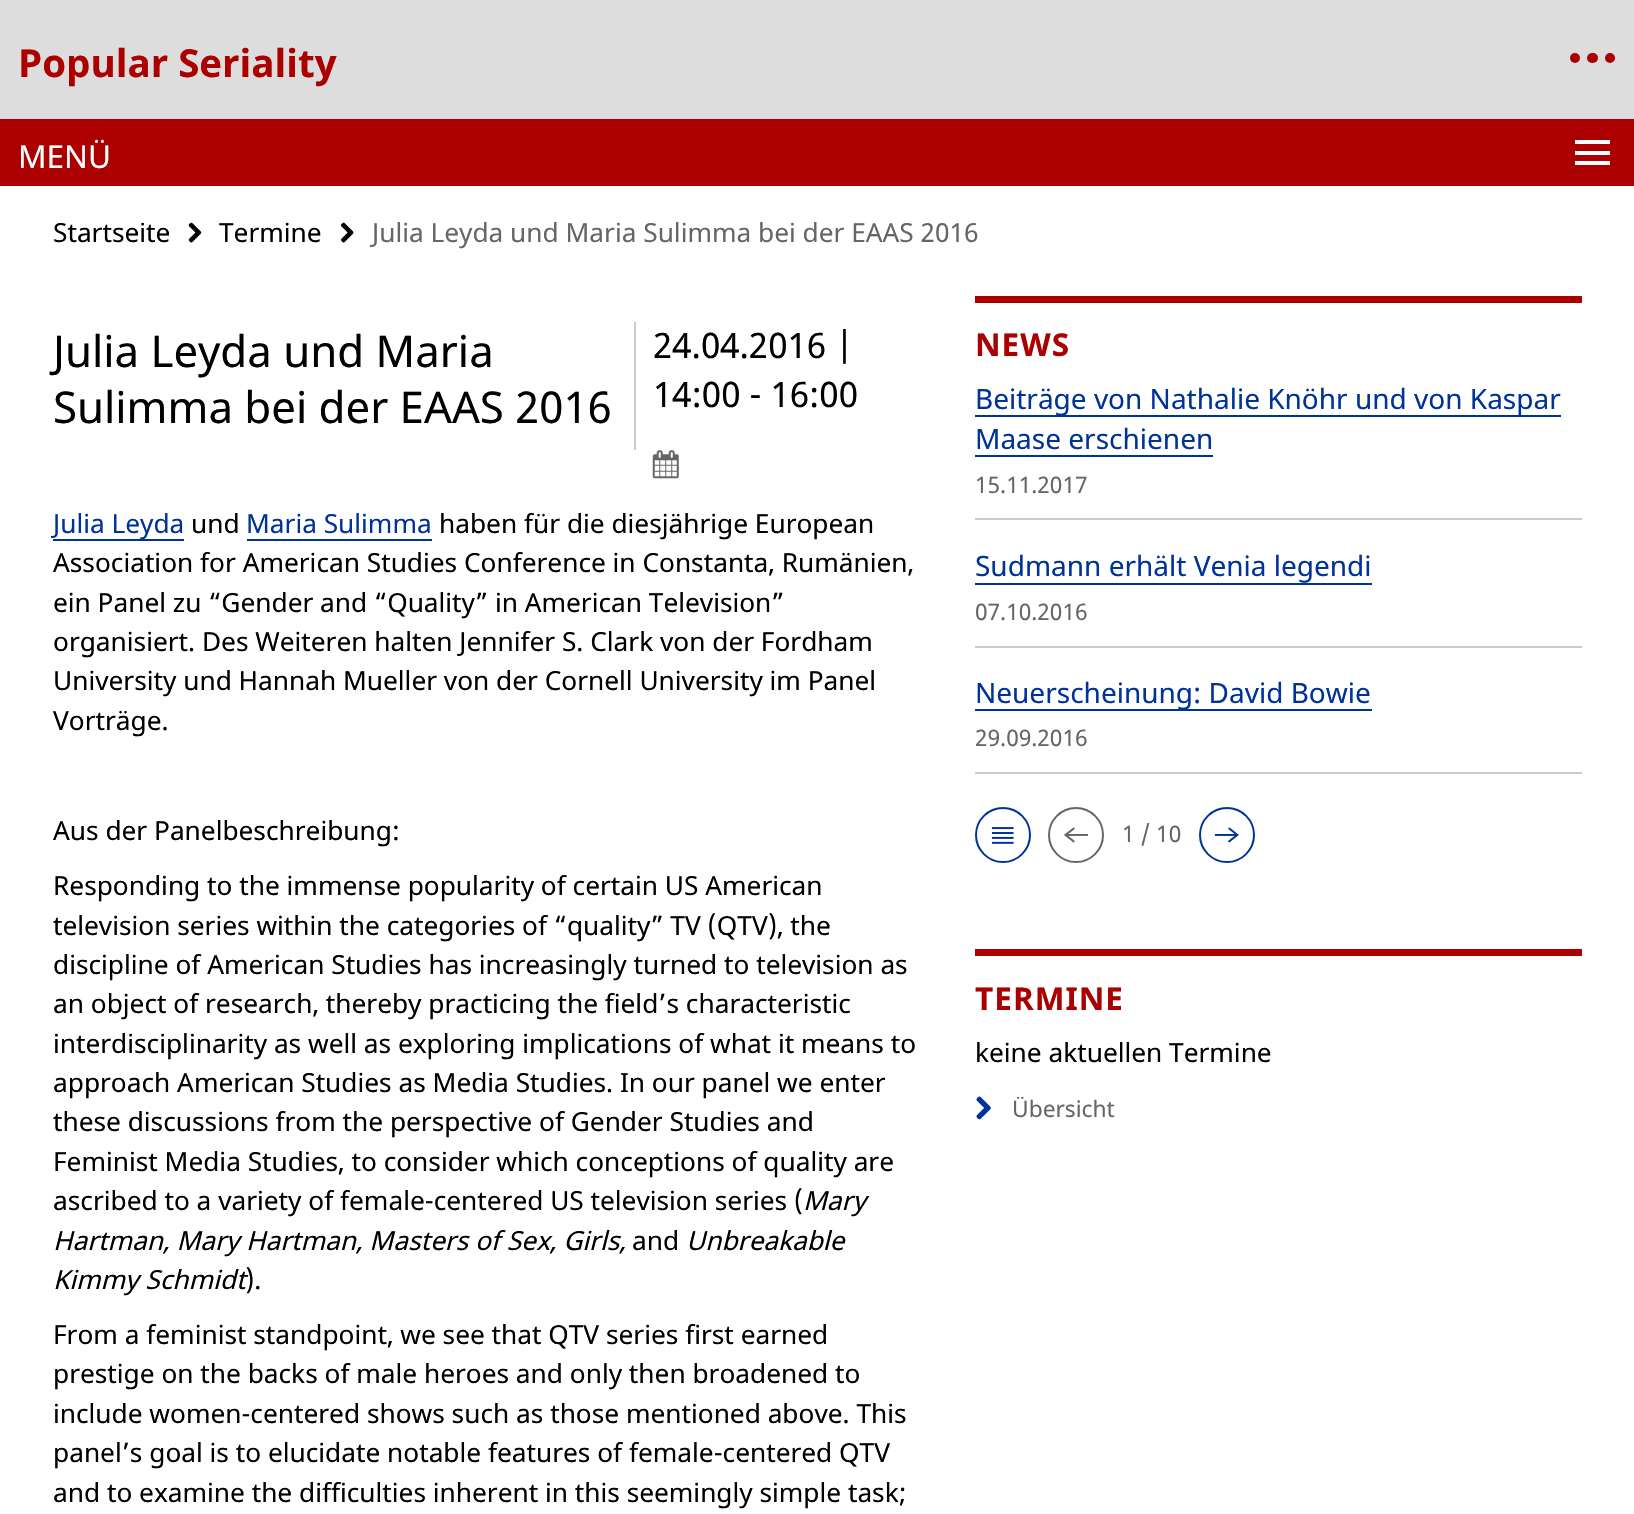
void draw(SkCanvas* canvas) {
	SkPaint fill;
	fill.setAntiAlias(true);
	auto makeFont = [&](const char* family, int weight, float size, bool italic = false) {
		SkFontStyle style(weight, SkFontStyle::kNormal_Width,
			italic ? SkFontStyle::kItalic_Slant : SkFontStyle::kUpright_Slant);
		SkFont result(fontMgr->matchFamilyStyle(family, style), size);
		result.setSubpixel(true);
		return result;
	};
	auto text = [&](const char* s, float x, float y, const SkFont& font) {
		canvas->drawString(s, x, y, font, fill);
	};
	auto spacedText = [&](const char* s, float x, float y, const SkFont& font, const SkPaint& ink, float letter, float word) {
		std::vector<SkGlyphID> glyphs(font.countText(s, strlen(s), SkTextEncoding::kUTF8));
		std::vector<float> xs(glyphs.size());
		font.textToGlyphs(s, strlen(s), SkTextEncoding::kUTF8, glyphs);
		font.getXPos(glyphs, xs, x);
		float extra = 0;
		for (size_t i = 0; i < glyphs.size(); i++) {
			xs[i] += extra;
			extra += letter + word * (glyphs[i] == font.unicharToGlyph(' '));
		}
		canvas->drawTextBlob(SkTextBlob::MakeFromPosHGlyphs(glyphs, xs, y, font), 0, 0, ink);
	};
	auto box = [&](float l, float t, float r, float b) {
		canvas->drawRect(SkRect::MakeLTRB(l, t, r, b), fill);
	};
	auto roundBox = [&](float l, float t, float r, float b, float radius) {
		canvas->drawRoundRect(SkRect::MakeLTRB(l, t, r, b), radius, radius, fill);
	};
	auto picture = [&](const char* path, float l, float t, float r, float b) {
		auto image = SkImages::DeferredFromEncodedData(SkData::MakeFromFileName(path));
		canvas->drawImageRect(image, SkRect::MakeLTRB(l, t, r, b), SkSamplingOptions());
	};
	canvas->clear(0xFFFFFFFF);
	fill.setColor(0xFFDDDDDD);
	box(0, 0, 1634, 119);
	fill.setColor(0xFFAC0000);
	canvas->drawCircle(1575, 58, 5, fill);
	roundBox(1587, 53, 1598, 63, 5);
	canvas->drawCircle(1610, 58, 5, fill);
	box(0, 119, 1634, 186);
	fill.setColor(0xFFFFFFFF);
	box(1575, 140, 1610, 144);
	box(1575, 151, 1610, 155);
	box(1575, 161, 1610, 165);
	picture("image0.png", 188, 222, 202, 243);
	picture("image1.png", 341, 222, 354, 243);
	fill.setColor(0xFFCCCCCC);
	box(634, 322, 636, 450);
	picture("image2.png", 652, 450, 679, 479);
	fill.setColor(0xFF003399);
	box(53, 539, 184, 541);
	box(247, 539, 432, 541);
	fill.setColor(0xFFAC0000);
	box(975, 296, 1582, 303);
	fill.setColor(0xFFCCCCCC);
	box(975, 518, 1582, 520);
	fill.setColor(0xFF003399);
	box(975, 415, 1561, 417);
	box(975, 455, 1213, 457);
	fill.setColor(0xFFCCCCCC);
	box(975, 646, 1582, 648);
	fill.setColor(0xFF003399);
	box(975, 583, 1372, 585);
	fill.setColor(0xFFCCCCCC);
	box(975, 772, 1582, 774);
	fill.setColor(0xFF003399);
	box(975, 709, 1372, 711);
	fill.setStyle(SkPaint::kStroke_Style);
	fill.setStrokeWidth(2);
	canvas->drawCircle(1003, 835, 27, fill);
	picture("image3.png", 991, 827, 1014, 844);
	fill.setColor(0xFF666666);
	canvas->drawCircle(1076, 835, 27, fill);
	picture("image4.png", 1064, 827, 1089, 843);
	fill.setColor(0xFF003399);
	canvas->drawCircle(1227, 835, 27, fill);
	picture("image5.png", 1214, 827, 1239, 843);
	fill.setStyle(SkPaint::kFill_Style);
	fill.setColor(0xFFAC0000);
	box(975, 949, 1582, 956);
	picture("image6.png", 976, 1096, 991, 1120);
	auto font1 = makeFont("Noto Sans", 700, 38.5f);
	text("Popular Seriality", 18, 77, font1);
	auto font2 = makeFont("Noto Sans", 400, 31.5f);
	fill.setColor(0xFFFFFFFF);
	text("MENÜ", 18, 168, font2);
	auto font3 = makeFont("Noto Sans", 400, 26.25f);
	fill.setColor(0xFF000000);
	text("Startseite", 53, 242, font3);
	text("Termine", 219, 242, font3);
	fill.setColor(0xFF666666);
	text("Julia Leyda und Maria Sulimma bei der EAAS 2016", 372, 242, font3);
	auto font4 = makeFont("Noto Sans", 400, 43.75f);
	fill.setColor(0xFF000000);
	text("Julia Leyda und Maria", 53, 367, font4);
	text("Sulimma bei der EAAS 2016", 53, 423, font4);
	auto font5 = makeFont("Noto Sans", 400, 35);
	text("24.04.2016 |", 653, 358, font5);
	text("14:00 - 16:00", 653, 407, font5);
	fill.setColor(0xFF003399);
	text("Julia Leyda", 53, 533, font3);
	fill.setColor(0xFF000000);
	text("und", 191, 533, font3);
	fill.setColor(0xFF003399);
	text("Maria Sulimma", 246, 533, font3);
	fill.setColor(0xFF000000);
	text("haben für die diesjährige European", 439, 533, font3);
	text("Association for American Studies Conference in Constanta, Rumänien,", 53, 572, font3);
	text("ein Panel zu “Gender and “Quality” in American Television”", 53, 612, font3);
	text("organisiert. Des Weiteren halten Jennifer S. Clark von der Fordham", 53, 651, font3);
	text("University und Hannah Mueller von der Cornell University im Panel", 53, 690, font3);
	text("Vorträge.", 53, 730, font3);
	text("Aus der Panelbeschreibung:", 53, 840, font3);
	text("Responding to the immense popularity of certain US American", 53, 895, font3);
	text("television series within the categories of “quality” TV (QTV), the", 53, 935, font3);
	text("discipline of American Studies has increasingly turned to television as", 53, 974, font3);
	text("an object of research, thereby practicing the field’s characteristic", 53, 1013, font3);
	text("interdisciplinarity as well as exploring implications of what it means to", 53, 1053, font3);
	text("approach American Studies as Media Studies. In our panel we enter", 53, 1092, font3);
	text("these discussions from the perspective of Gender Studies and", 53, 1131, font3);
	text("Feminist Media Studies, to consider which conceptions of quality are", 53, 1171, font3);
	text("ascribed to a variety of female-centered US television series (", 53, 1210, font3);
	auto font6 = makeFont("Noto Sans", 400, 26.25f, true);
	text("Mary", 803, 1210, font6);
	text("Hartman, Mary Hartman, Masters of Sex, Girls,", 53, 1250, font6);
	text("and", 632, 1250, font3);
	text("Unbreakable", 686, 1250, font6);
	text("Kimmy Schmidt", 53, 1289, font6);
	text(").", 245, 1289, font3);
	text("From a feminist standpoint, we see that QTV series first earned", 53, 1344, font3);
	text("prestige on the backs of male heroes and only then broadened to", 53, 1383, font3);
	text("include women-centered shows such as those mentioned above. This", 53, 1423, font3);
	text("panel’s goal is to elucidate notable features of female-centered QTV", 53, 1462, font3);
	text("and to examine the difficulties inherent in this seemingly simple task;", 53, 1502, font3);
	auto font7 = makeFont("Noto Sans", 700, 31.5f);
	fill.setColor(0xFFAC0000);
	spacedText("NEWS", 975, 356, font7, fill, 1, 0);
	auto font8 = makeFont("Noto Sans", 400, 28);
	fill.setColor(0xFF003399);
	text("Beiträge von Nathalie Knöhr und von Kaspar", 975, 409, font8);
	text("Maase erschienen", 975, 449, font8);
	auto font9 = makeFont("Noto Sans", 400, 22.75f);
	fill.setColor(0xFF666666);
	text("15.11.2017", 975, 493, font9);
	fill.setColor(0xFF003399);
	text("Sudmann erhält Venia legendi", 975, 576, font8);
	fill.setColor(0xFF666666);
	text("07.10.2016", 975, 620, font9);
	fill.setColor(0xFF003399);
	text("Neuerscheinung: David Bowie", 975, 703, font8);
	fill.setColor(0xFF666666);
	text("29.09.2016", 975, 746, font9);
	text("1 / 10", 1122, 842, font9);
	fill.setColor(0xFFAC0000);
	spacedText("TERMINE", 975, 1010, font7, fill, 1, 0);
	fill.setColor(0xFF000000);
	text("keine aktuellen Termine", 975, 1062, font3);
	fill.setColor(0xFF666666);
	text("Übersicht", 1012, 1117, font9);
}
